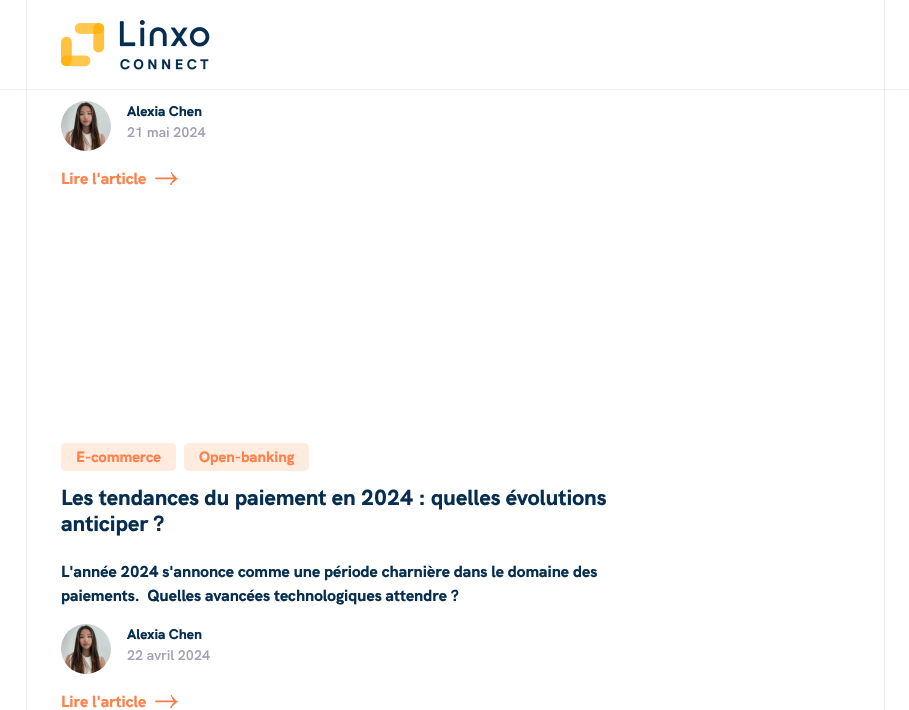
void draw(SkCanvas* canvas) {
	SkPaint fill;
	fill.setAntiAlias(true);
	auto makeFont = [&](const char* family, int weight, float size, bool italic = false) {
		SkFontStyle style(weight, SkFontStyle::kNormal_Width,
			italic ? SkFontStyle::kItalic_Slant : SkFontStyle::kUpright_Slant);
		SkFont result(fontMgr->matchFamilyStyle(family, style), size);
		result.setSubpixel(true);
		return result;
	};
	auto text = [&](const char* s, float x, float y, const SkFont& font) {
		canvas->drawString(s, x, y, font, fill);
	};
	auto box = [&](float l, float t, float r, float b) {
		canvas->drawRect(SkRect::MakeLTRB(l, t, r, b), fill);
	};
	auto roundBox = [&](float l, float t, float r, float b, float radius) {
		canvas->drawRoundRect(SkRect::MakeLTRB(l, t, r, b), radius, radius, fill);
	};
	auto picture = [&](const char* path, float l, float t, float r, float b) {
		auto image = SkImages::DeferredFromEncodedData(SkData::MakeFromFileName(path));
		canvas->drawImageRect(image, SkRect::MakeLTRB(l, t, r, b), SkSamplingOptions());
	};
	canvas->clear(0xFFFFFFFF);
	fill.setColor(0xFFECECF0);
	box(26, 0, 27, 710);
	box(884, 0, 885, 710);
	fill.setColor(0xFFEFF4F7);
	box(0, 89, 909, 90);
	fill.setColor(0xFFDFE3E9);
	box(26, 89, 27, 90);
	box(884, 89, 885, 90);
	picture("image0.png", 61, 20, 210, 70);
	picture("image1.png", 61, 101, 111, 151);
	picture("image2.png", 155, 172, 178, 185);
	fill.setColor(0xFFFFECDF);
	roundBox(61, 443, 176, 471, 5);
	roundBox(184, 443, 309, 471, 5);
	picture("image1.png", 61, 624, 111, 674);
	picture("image2.png", 155, 695, 178, 708);
	auto font1 = makeFont("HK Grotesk", 800, 14);
	fill.setColor(0xFF052E50);
	text("Alexia Chen", 127, 116, font1);
	auto font2 = makeFont("HK Grotesk", 600, 14);
	fill.setColor(0xFF9F9FB3);
	text("21 mai 2024", 127, 137, font2);
	auto font3 = makeFont("HK Grotesk", 800, 16);
	fill.setColor(0xFFFF814B);
	text("Lire l'article", 61, 184, font3);
	auto font4 = makeFont("HK Grotesk", 800, 15);
	text("E-commerce", 76, 462, font4);
	text("Open-banking", 199, 462, font4);
	auto font5 = makeFont("HK Grotesk", 800, 22);
	fill.setColor(0xFF052E50);
	text("Les tendances du paiement en 2024 : quelles évolutions", 61, 505, font5);
	text("anticiper ?", 61, 531, font5);
	text("L'année 2024 s'annonce comme une période charnière dans le domaine des", 61, 577, font3);
	text("paiements.  Quelles avancées technologiques attendre ?", 61, 601, font3);
	text("Alexia Chen", 127, 639, font1);
	fill.setColor(0xFF9F9FB3);
	text("22 avril 2024", 127, 660, font2);
	fill.setColor(0xFFFF814B);
	text("Lire l'article", 61, 707, font3);
}
